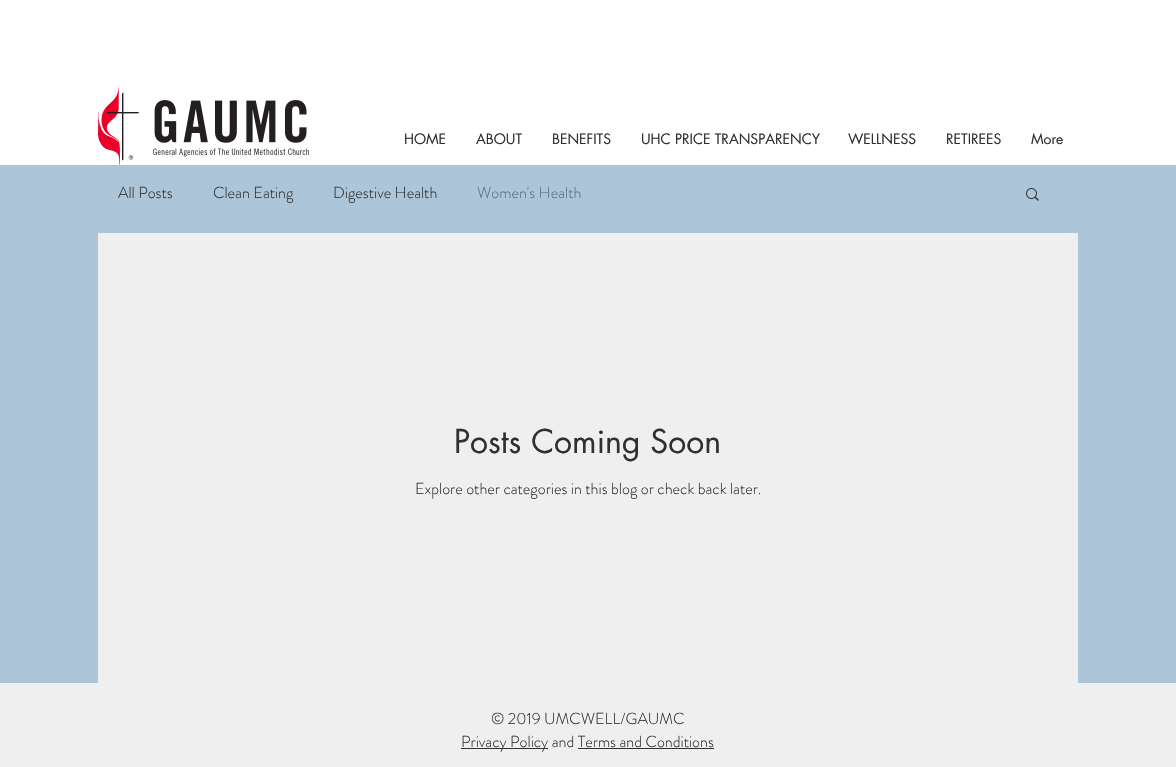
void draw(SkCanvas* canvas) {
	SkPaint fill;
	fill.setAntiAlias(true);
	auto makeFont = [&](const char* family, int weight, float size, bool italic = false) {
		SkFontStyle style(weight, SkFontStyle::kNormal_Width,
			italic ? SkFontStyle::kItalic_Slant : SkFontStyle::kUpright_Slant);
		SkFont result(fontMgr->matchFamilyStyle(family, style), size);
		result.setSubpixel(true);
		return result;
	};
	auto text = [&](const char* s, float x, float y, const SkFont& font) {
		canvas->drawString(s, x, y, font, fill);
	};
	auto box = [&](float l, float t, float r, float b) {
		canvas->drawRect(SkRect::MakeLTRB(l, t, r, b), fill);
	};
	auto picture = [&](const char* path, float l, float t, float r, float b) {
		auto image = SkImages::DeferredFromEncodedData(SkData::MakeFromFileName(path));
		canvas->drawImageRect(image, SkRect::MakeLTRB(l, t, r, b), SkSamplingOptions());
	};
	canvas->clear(0xFFADC5D8);
	fill.setColor(0xFFFFFFFF);
	box(0, 0, 1176, 165);
	picture("image0.png", 98, 87, 309, 165);
	fill.setColor(0xFFEFEFEF);
	box(98, 233, 1078, 683);
	picture("image1.png", 1026, 188, 1039, 201);
	box(0, 683, 1176, 767);
	fill.setColor(0xFF303030);
	box(461, 748, 548, 749);
	box(578, 748, 714, 749);
	auto font1 = makeFont("futura", 400, 14);
	text("HOME", 404, 144, font1);
	text("ABOUT", 476, 144, font1);
	text("BENEFITS", 552, 144, font1);
	text("UHC PRICE TRANSPARENCY", 641, 144, font1);
	text("WELLNESS", 848, 144, font1);
	text("RETIREES", 946, 144, font1);
	text("More", 1031, 144, font1);
	auto font2 = makeFont("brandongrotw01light", 300, 16);
	text("All Posts", 118, 198, font2);
	text("Clean Eating", 213, 198, font2);
	text("Digestive Health", 333, 198, font2);
	fill.setColor(0xFF54728A);
	text("Women's Health", 477, 198, font2);
	auto font3 = makeFont("futura", 400, 32);
	fill.setColor(0xFF303030);
	text("Posts Coming Soon", 454, 453, font3);
	text("Explore other categories in this blog or check back later.", 415, 494, font2);
	text("© 2019 UMCWELL/GAUMC", 491, 724, font2);
	text("Privacy Policy and Terms and Conditions", 461, 747, font2);
}
